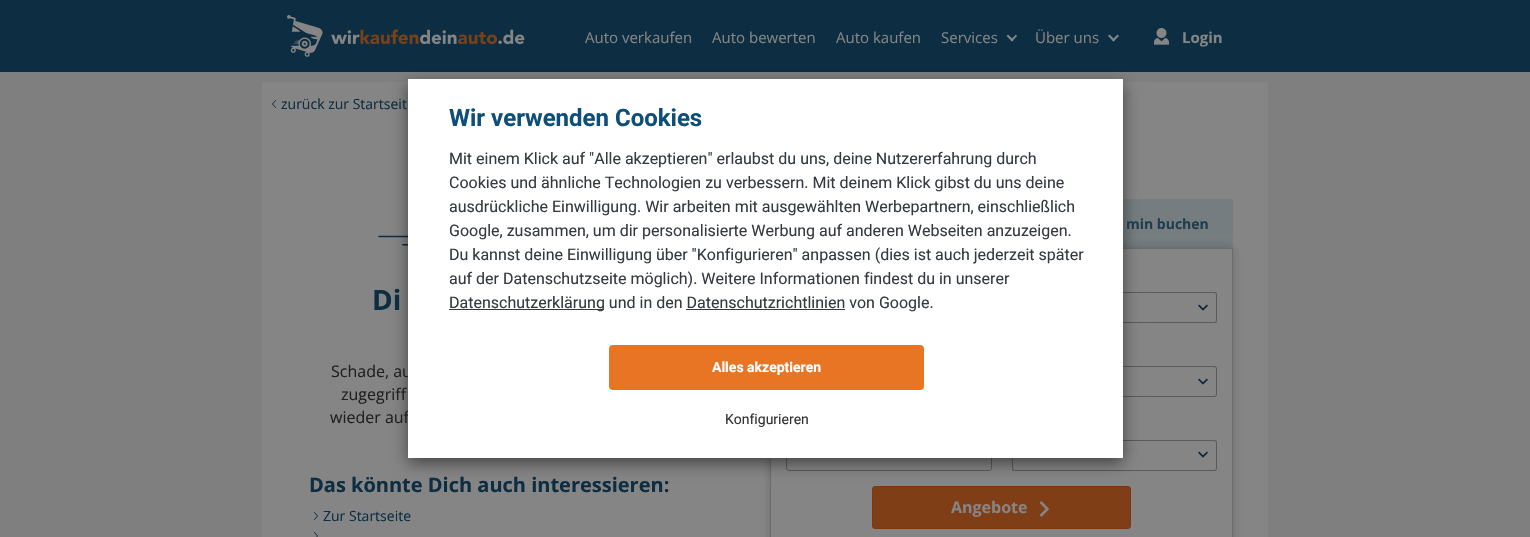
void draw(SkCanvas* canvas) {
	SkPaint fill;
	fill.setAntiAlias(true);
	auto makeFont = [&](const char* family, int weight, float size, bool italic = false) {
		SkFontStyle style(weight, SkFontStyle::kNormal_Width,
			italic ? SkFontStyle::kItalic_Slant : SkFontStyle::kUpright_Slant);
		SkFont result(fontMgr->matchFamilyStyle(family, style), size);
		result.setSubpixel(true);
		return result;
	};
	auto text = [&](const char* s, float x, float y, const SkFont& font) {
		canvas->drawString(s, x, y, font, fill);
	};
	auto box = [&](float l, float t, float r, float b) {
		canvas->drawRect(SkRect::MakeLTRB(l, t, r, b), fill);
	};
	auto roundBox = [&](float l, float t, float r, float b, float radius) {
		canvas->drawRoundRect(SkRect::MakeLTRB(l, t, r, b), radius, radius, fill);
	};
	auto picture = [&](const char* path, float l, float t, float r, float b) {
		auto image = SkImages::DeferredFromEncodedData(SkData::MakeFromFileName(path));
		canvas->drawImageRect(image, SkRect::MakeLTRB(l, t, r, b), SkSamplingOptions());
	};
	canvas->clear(0xFF7F7F7F);
	fill.setColor(0xFF0C2D42);
	box(0, 0, 1530, 72);
	picture("image0.png", 287, 15, 525, 57);
	fill.setColor(0xFF858585);
	canvas->drawPath(SkPathBuilder().moveTo(1017, 36).lineTo(1012, 41.5f).lineTo(1010.5f, 40).lineTo(1016, 34.5f).close().detach(), fill);
	canvas->drawPath(SkPathBuilder().moveTo(1013.5f, 40).lineTo(1012, 41.5f).lineTo(1006.5f, 36).lineTo(1008, 34.5f).close().detach(), fill);
	canvas->drawPath(SkPathBuilder().moveTo(1119, 36).lineTo(1113.5f, 41.5f).lineTo(1112, 40).lineTo(1117.5f, 34.5f).close().detach(), fill);
	canvas->drawPath(SkPathBuilder().moveTo(1115, 40).lineTo(1113.5f, 41.5f).lineTo(1108, 36).lineTo(1109.5f, 34.5f).close().detach(), fill);
	picture("image1.png", 1154, 28, 1169, 45);
	box(262, 82, 1268, 537);
	fill.setStyle(SkPaint::kStroke_Style);
	fill.setStrokeWidth(1);
	fill.setStrokeCap(SkPaint::kRound_Cap);
	fill.setStrokeJoin(SkPaint::kRound_Join);
	fill.setColor(0xFF0C2D42);
	canvas->drawPath(SkPathBuilder().moveTo(275.5f, 100.5f).lineTo(272.5f, 104).lineTo(275.5f, 107.5f).detach(), fill);
	picture("image2.png", 378, 235, 408, 246);
	fill.setStyle(SkPaint::kFill_Style);
	fill.setColor(0xFF757D80);
	box(1123, 199, 1233, 248);
	fill.setColor(0x33060606);
	fill.setMaskFilter(SkMaskFilter::MakeBlur(kNormal_SkBlurStyle, 5));
	canvas->drawRect(SkRect::MakeLTRB(770, 248, 1233, 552), fill);
	fill.setMaskFilter(nullptr);
	fill.setColor(0xFF858585);
	canvas->drawRect(SkRect::MakeLTRB(770.5f, 248.5f, 1232.5f, 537.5f), fill);
	fill.setStyle(SkPaint::kStroke_Style);
	fill.setStrokeCap(SkPaint::kButt_Cap);
	fill.setStrokeJoin(SkPaint::kMiter_Join);
	fill.setColor(0xFF6C6C6C);
	canvas->drawRect(SkRect::MakeLTRB(770.5f, 248.5f, 1232.5f, 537.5f), fill);
	fill.setStyle(SkPaint::kFill_Style);
	fill.setColor(0xFF797979);
	box(1214, 292, 1217, 323);
	fill.setStyle(SkPaint::kStroke_Style);
	fill.setColor(0xFF5B5B5B);
	canvas->drawRoundRect(SkRect::MakeLTRB(1012.5f, 292.5f, 1216.5f, 322.5f), 2.5f, 2.5f, fill);
	fill.setStyle(SkPaint::kFill_Style);
	fill.setColor(0xFF858585);
	canvas->drawRoundRect(SkRect::MakeLTRB(1012.5f, 292.5f, 1216.5f, 322.5f), 2.5f, 2.5f, fill);
	fill.setStyle(SkPaint::kStroke_Style);
	fill.setColor(0xFF5B5B5B);
	canvas->drawRoundRect(SkRect::MakeLTRB(1012.5f, 292.5f, 1216.5f, 322.5f), 2.5f, 2.5f, fill);
	picture("image3.png", 1198, 304, 1208, 311);
	canvas->drawRoundRect(SkRect::MakeLTRB(1012.5f, 366.5f, 1216.5f, 396.5f), 2.5f, 2.5f, fill);
	fill.setStyle(SkPaint::kFill_Style);
	fill.setColor(0xFF858585);
	canvas->drawRoundRect(SkRect::MakeLTRB(1012.5f, 366.5f, 1216.5f, 396.5f), 2.5f, 2.5f, fill);
	fill.setStyle(SkPaint::kStroke_Style);
	fill.setColor(0xFF5B5B5B);
	canvas->drawRoundRect(SkRect::MakeLTRB(1012.5f, 366.5f, 1216.5f, 396.5f), 2.5f, 2.5f, fill);
	picture("image3.png", 1198, 378, 1208, 385);
	canvas->drawRoundRect(SkRect::MakeLTRB(786.5f, 440.5f, 991.5f, 470.5f), 2.5f, 2.5f, fill);
	fill.setStyle(SkPaint::kFill_Style);
	fill.setColor(0xFF797979);
	box(1012, 440, 1217, 471);
	fill.setStyle(SkPaint::kStroke_Style);
	fill.setColor(0xFF5B5B5B);
	canvas->drawRoundRect(SkRect::MakeLTRB(1012.5f, 440.5f, 1216.5f, 470.5f), 2.5f, 2.5f, fill);
	fill.setStyle(SkPaint::kFill_Style);
	fill.setColor(0xFF858585);
	canvas->drawRoundRect(SkRect::MakeLTRB(1012.5f, 440.5f, 1216.5f, 470.5f), 2.5f, 2.5f, fill);
	fill.setStyle(SkPaint::kStroke_Style);
	fill.setColor(0xFF5B5B5B);
	canvas->drawRoundRect(SkRect::MakeLTRB(1012.5f, 440.5f, 1216.5f, 470.5f), 2.5f, 2.5f, fill);
	picture("image3.png", 1198, 451, 1208, 458);
	fill.setStyle(SkPaint::kFill_Style);
	fill.setColor(0xFF7F3E16);
	canvas->drawRoundRect(SkRect::MakeLTRB(872.5f, 486.5f, 1130.5f, 528.5f), 2.5f, 2.5f, fill);
	fill.setStyle(SkPaint::kStroke_Style);
	fill.setColor(0xFF7D370C);
	canvas->drawRoundRect(SkRect::MakeLTRB(872.5f, 486.5f, 1130.5f, 528.5f), 2.5f, 2.5f, fill);
	fill.setStrokeWidth(2.5f);
	fill.setColor(0xFF858585);
	canvas->drawPath(SkPathBuilder().moveTo(1040.5f, 516).lineTo(1047.5f, 509).lineTo(1040.5f, 502).detach(), fill);
	fill.setStrokeWidth(1);
	fill.setStrokeCap(SkPaint::kRound_Cap);
	fill.setStrokeJoin(SkPaint::kRound_Join);
	fill.setColor(0xFF0C2D42);
	canvas->drawPath(SkPathBuilder().moveTo(314.5f, 519.5f).lineTo(317.5f, 516).lineTo(314.5f, 512.5f).moveTo(314.5f, 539.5f).lineTo(317.5f, 536).lineTo(314.5f, 532.5f).detach(), fill);
	fill.setStyle(SkPaint::kFill_Style);
	fill.setColor(0x80000000);
	fill.setMaskFilter(SkMaskFilter::MakeBlur(kNormal_SkBlurStyle, 7.5f));
	canvas->drawRect(SkRect::MakeLTRB(408, 84, 1123, 463), fill);
	fill.setMaskFilter(nullptr);
	auto font1 = makeFont("Open Sans", 400, 15);
	fill.setColor(0xFF858585);
	text("Auto verkaufen", 585, 43, font1);
	text("Auto bewerten", 712, 43, font1);
	text("Auto kaufen", 836, 43, font1);
	text("Services", 941, 43, font1);
	text("Über uns", 1035, 43, font1);
	auto font2 = makeFont("Open Sans", 700, 15);
	text("Login", 1182, 43, font2);
	auto font3 = makeFont("Open Sans", 400, 14);
	fill.setColor(0xFF0C2D42);
	text("zurück zur Startseit", 281, 109, font3);
	auto font4 = makeFont("Open Sans", 700, 28);
	text("Di", 372, 310, font4);
	auto font5 = makeFont("Open Sans", 400, 16);
	fill.setColor(0xFF1F1F1F);
	text("Schade, au", 331, 377, font5);
	text("zugegriff", 341, 400, font5);
	text("wieder auf", 330, 423, font5);
	auto font6 = makeFont("Open Sans", 700, 14);
	fill.setColor(0xFF213D4E);
	text("min buchen", 1126, 229, font6);
	auto font7 = makeFont("Open Sans", 700, 16);
	fill.setColor(0xFF858585);
	text("Angebote", 951, 513, font7);
	auto font8 = makeFont("Open Sans", 700, 20);
	fill.setColor(0xFF0C2D42);
	text("Das könnte Dich auch interessieren:", 309, 492, font8);
	text("Zur Startseite", 323, 521, font3);
	fill.setColor(0xFFFFFFFF);
	box(408, 79, 1123, 458);
	auto font9 = makeFont("Roboto", 700, 24);
	fill.setColor(0xFF0D4F78);
	text("Wir verwenden Cookies", 449, 126, font9);
	auto font10 = makeFont("Roboto", 400, 16);
	fill.setColor(0xFF343A40);
	text("Mit einem Klick auf \"Alle akzeptieren\" erlaubst du uns, deine Nutzererfahrung durch", 449, 164, font10);
	text("Cookies und ähnliche Technologien zu verbessern. Mit deinem Klick gibst du uns deine", 449, 188, font10);
	text("ausdrückliche Einwilligung. Wir arbeiten mit ausgewählten Werbepartnern, einschließlich", 449, 212, font10);
	text("Google, zusammen, um dir personalisierte Werbung auf anderen Webseiten anzuzeigen.", 449, 236, font10);
	text("Du kannst deine Einwilligung über \"Konfigurieren\" anpassen (dies ist auch jederzeit später", 449, 260, font10);
	text("auf der Datenschutzseite möglich). Weitere Informationen findest du in unserer", 449, 284, font10);
	box(449, 309, 604, 310);
	text("Datenschutzerklärung und in den Datenschutzrichtlinien von Google.", 449, 308, font10);
	box(686, 309, 845, 310);
	fill.setColor(0xFFE87524);
	roundBox(609, 345, 924, 390, 4);
	auto font11 = makeFont("Roboto", 700, 14);
	fill.setColor(0xFFFFFFFF);
	text("Alles akzeptieren", 712, 372, font11);
	auto font12 = makeFont("Roboto", 400, 14);
	fill.setColor(0xFF333333);
	text("Konfigurieren", 725, 424, font12);
}
